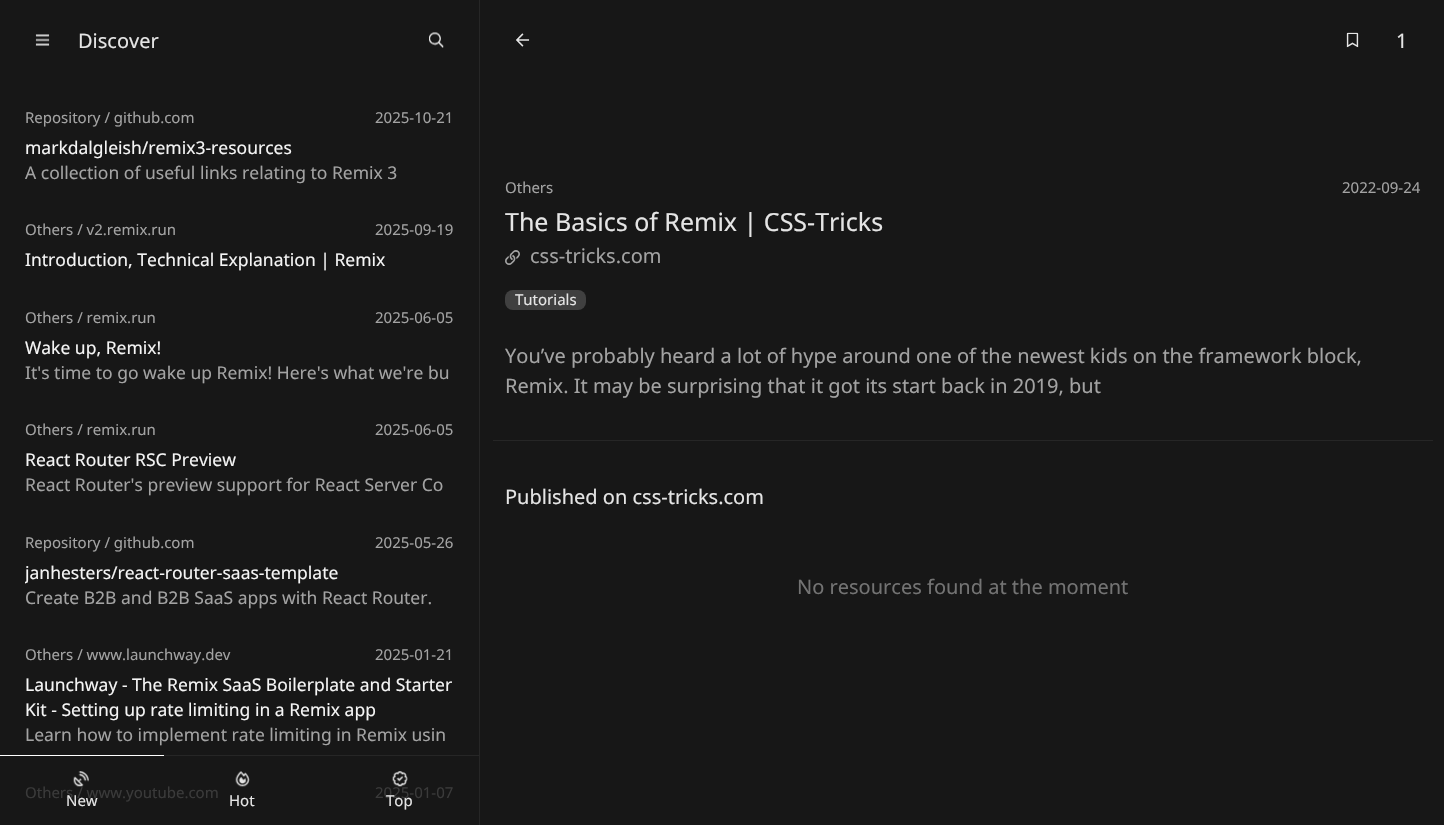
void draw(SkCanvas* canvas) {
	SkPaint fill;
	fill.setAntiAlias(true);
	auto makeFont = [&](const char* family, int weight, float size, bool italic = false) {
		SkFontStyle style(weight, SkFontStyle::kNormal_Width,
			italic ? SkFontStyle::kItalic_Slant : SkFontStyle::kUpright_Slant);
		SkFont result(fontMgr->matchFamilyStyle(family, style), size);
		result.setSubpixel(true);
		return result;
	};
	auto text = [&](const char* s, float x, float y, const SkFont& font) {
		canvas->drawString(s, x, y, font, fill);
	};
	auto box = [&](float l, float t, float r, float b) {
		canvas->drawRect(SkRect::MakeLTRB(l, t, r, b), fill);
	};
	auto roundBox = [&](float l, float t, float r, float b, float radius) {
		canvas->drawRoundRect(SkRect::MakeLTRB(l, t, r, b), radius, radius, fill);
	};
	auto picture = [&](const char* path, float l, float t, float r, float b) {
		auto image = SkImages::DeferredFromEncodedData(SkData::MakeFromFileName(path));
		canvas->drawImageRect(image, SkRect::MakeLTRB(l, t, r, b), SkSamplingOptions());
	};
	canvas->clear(0xFF171717);
	fill.setColor(0xFF262626);
	box(479, 0, 480, 825);
	picture("image0.png", 35, 34, 50, 46);
	picture("image1.png", 429, 32, 444, 48);
	fill.setColor(0xFFFFFFFF);
	box(0, 755, 164, 756);
	fill.setColor(0xFF262626);
	box(164, 755, 479, 756);
	picture("image3.png", 235, 771, 250, 787);
	picture("image4.png", 392, 771, 408, 787);
	picture("image5.png", 516, 33, 530, 47);
	picture("image6.png", 1346, 32, 1359, 48);
	picture("image7.png", 505, 250, 520, 265);
	fill.setColor(0xFF404040);
	roundBox(505, 290, 586, 310, 8);
	fill.setColor(0xFF262626);
	box(493, 440, 1433, 441);
	auto font1 = makeFont("Noto Sans", 400, 20);
	fill.setColor(0xFFE5E5E5);
	text("Discover", 78, 48, font1);
	auto font2 = makeFont("Noto Sans", 400, 15);
	fill.setColor(0xFFA3A3A3);
	text("Repository / github.com", 25, 123, font2);
	text("2025-10-21", 375, 123, font2);
	auto font3 = makeFont("Noto Sans", 400, 17.5f);
	fill.setColor(0xFFF5F5F5);
	text("markdalgleish/remix3-resources", 25, 154, font3);
	fill.setColor(0xFFA3A3A3);
	text("A collection of useful links relating to Remix 3", 25, 179, font3);
	text("Others / v2.remix.run", 25, 235, font2);
	text("2025-09-19", 375, 235, font2);
	fill.setColor(0xFFF5F5F5);
	text("Introduction, Technical Explanation | Remix", 25, 266, font3);
	fill.setColor(0xFFA3A3A3);
	text("Others / remix.run", 25, 323, font2);
	text("2025-06-05", 375, 323, font2);
	fill.setColor(0xFFF5F5F5);
	text("Wake up, Remix!", 25, 354, font3);
	fill.setColor(0xFFA3A3A3);
	text("It's time to go wake up Remix! Here's what we're bu", 25, 379, font3);
	text("Others / remix.run", 25, 435, font2);
	text("2025-06-05", 375, 435, font2);
	fill.setColor(0xFFF5F5F5);
	text("React Router RSC Preview", 25, 466, font3);
	fill.setColor(0xFFA3A3A3);
	text("React Router's preview support for React Server Co", 25, 491, font3);
	text("Repository / github.com", 25, 548, font2);
	text("2025-05-26", 375, 548, font2);
	canvas->save();
	canvas->clipRect(SkRect::MakeLTRB(25, 560, 454, 585));
	fill.setColor(0xFFF5F5F5);
	text("janhesters/react-router-saas-template", 25, 579, font3);
	canvas->restore();
	fill.setColor(0xFFA3A3A3);
	text("Create B2B and B2B SaaS apps with React Router.", 25, 604, font3);
	text("Others / www.launchway.dev", 25, 660, font2);
	text("2025-01-21", 375, 660, font2);
	fill.setColor(0xFFF5F5F5);
	text("Launchway - The Remix SaaS Boilerplate and Starter", 25, 691, font3);
	text("Kit - Setting up rate limiting in a Remix app", 25, 716, font3);
	fill.setColor(0xFFA3A3A3);
	text("Learn how to implement rate limiting in Remix usin", 25, 741, font3);
	fill.setColor(0xFF3A3A3A);
	text("Others / www.youtube.com", 25, 798, font2);
	text("2025-01-07", 375, 798, font2);
	picture("image2.png", 73, 771, 89, 787);
	fill.setColor(0xFFE5E5E5);
	text("New", 66, 806, font2);
	text("Hot", 229, 806, font2);
	text("Top", 386, 806, font2);
	text("1", 1396, 48, font1);
	fill.setColor(0xFFA3A3A3);
	text("Others", 505, 193, font2);
	text("2022-09-24", 1342, 193, font2);
	auto font4 = makeFont("Noto Sans", 400, 25);
	fill.setColor(0xFFE5E5E5);
	text("The Basics of Remix | CSS-Tricks", 505, 231, font4);
	fill.setColor(0xFFA3A3A3);
	text("css-tricks.com", 530, 263, font1);
	fill.setColor(0xFFE5E5E5);
	text("Tutorials", 515, 305, font2);
	fill.setColor(0xFFA3A3A3);
	text("You’ve probably heard a lot of hype around one of the newest kids on the framework block,", 505, 363, font1);
	text("Remix. It may be surprising that it got its start back in 2019, but", 505, 393, font1);
	fill.setColor(0xFFE5E5E5);
	text("Published on css-tricks.com", 505, 504, font1);
	fill.setColor(0xFF737373);
	text("No resources found at the moment", 797, 594, font1);
}
